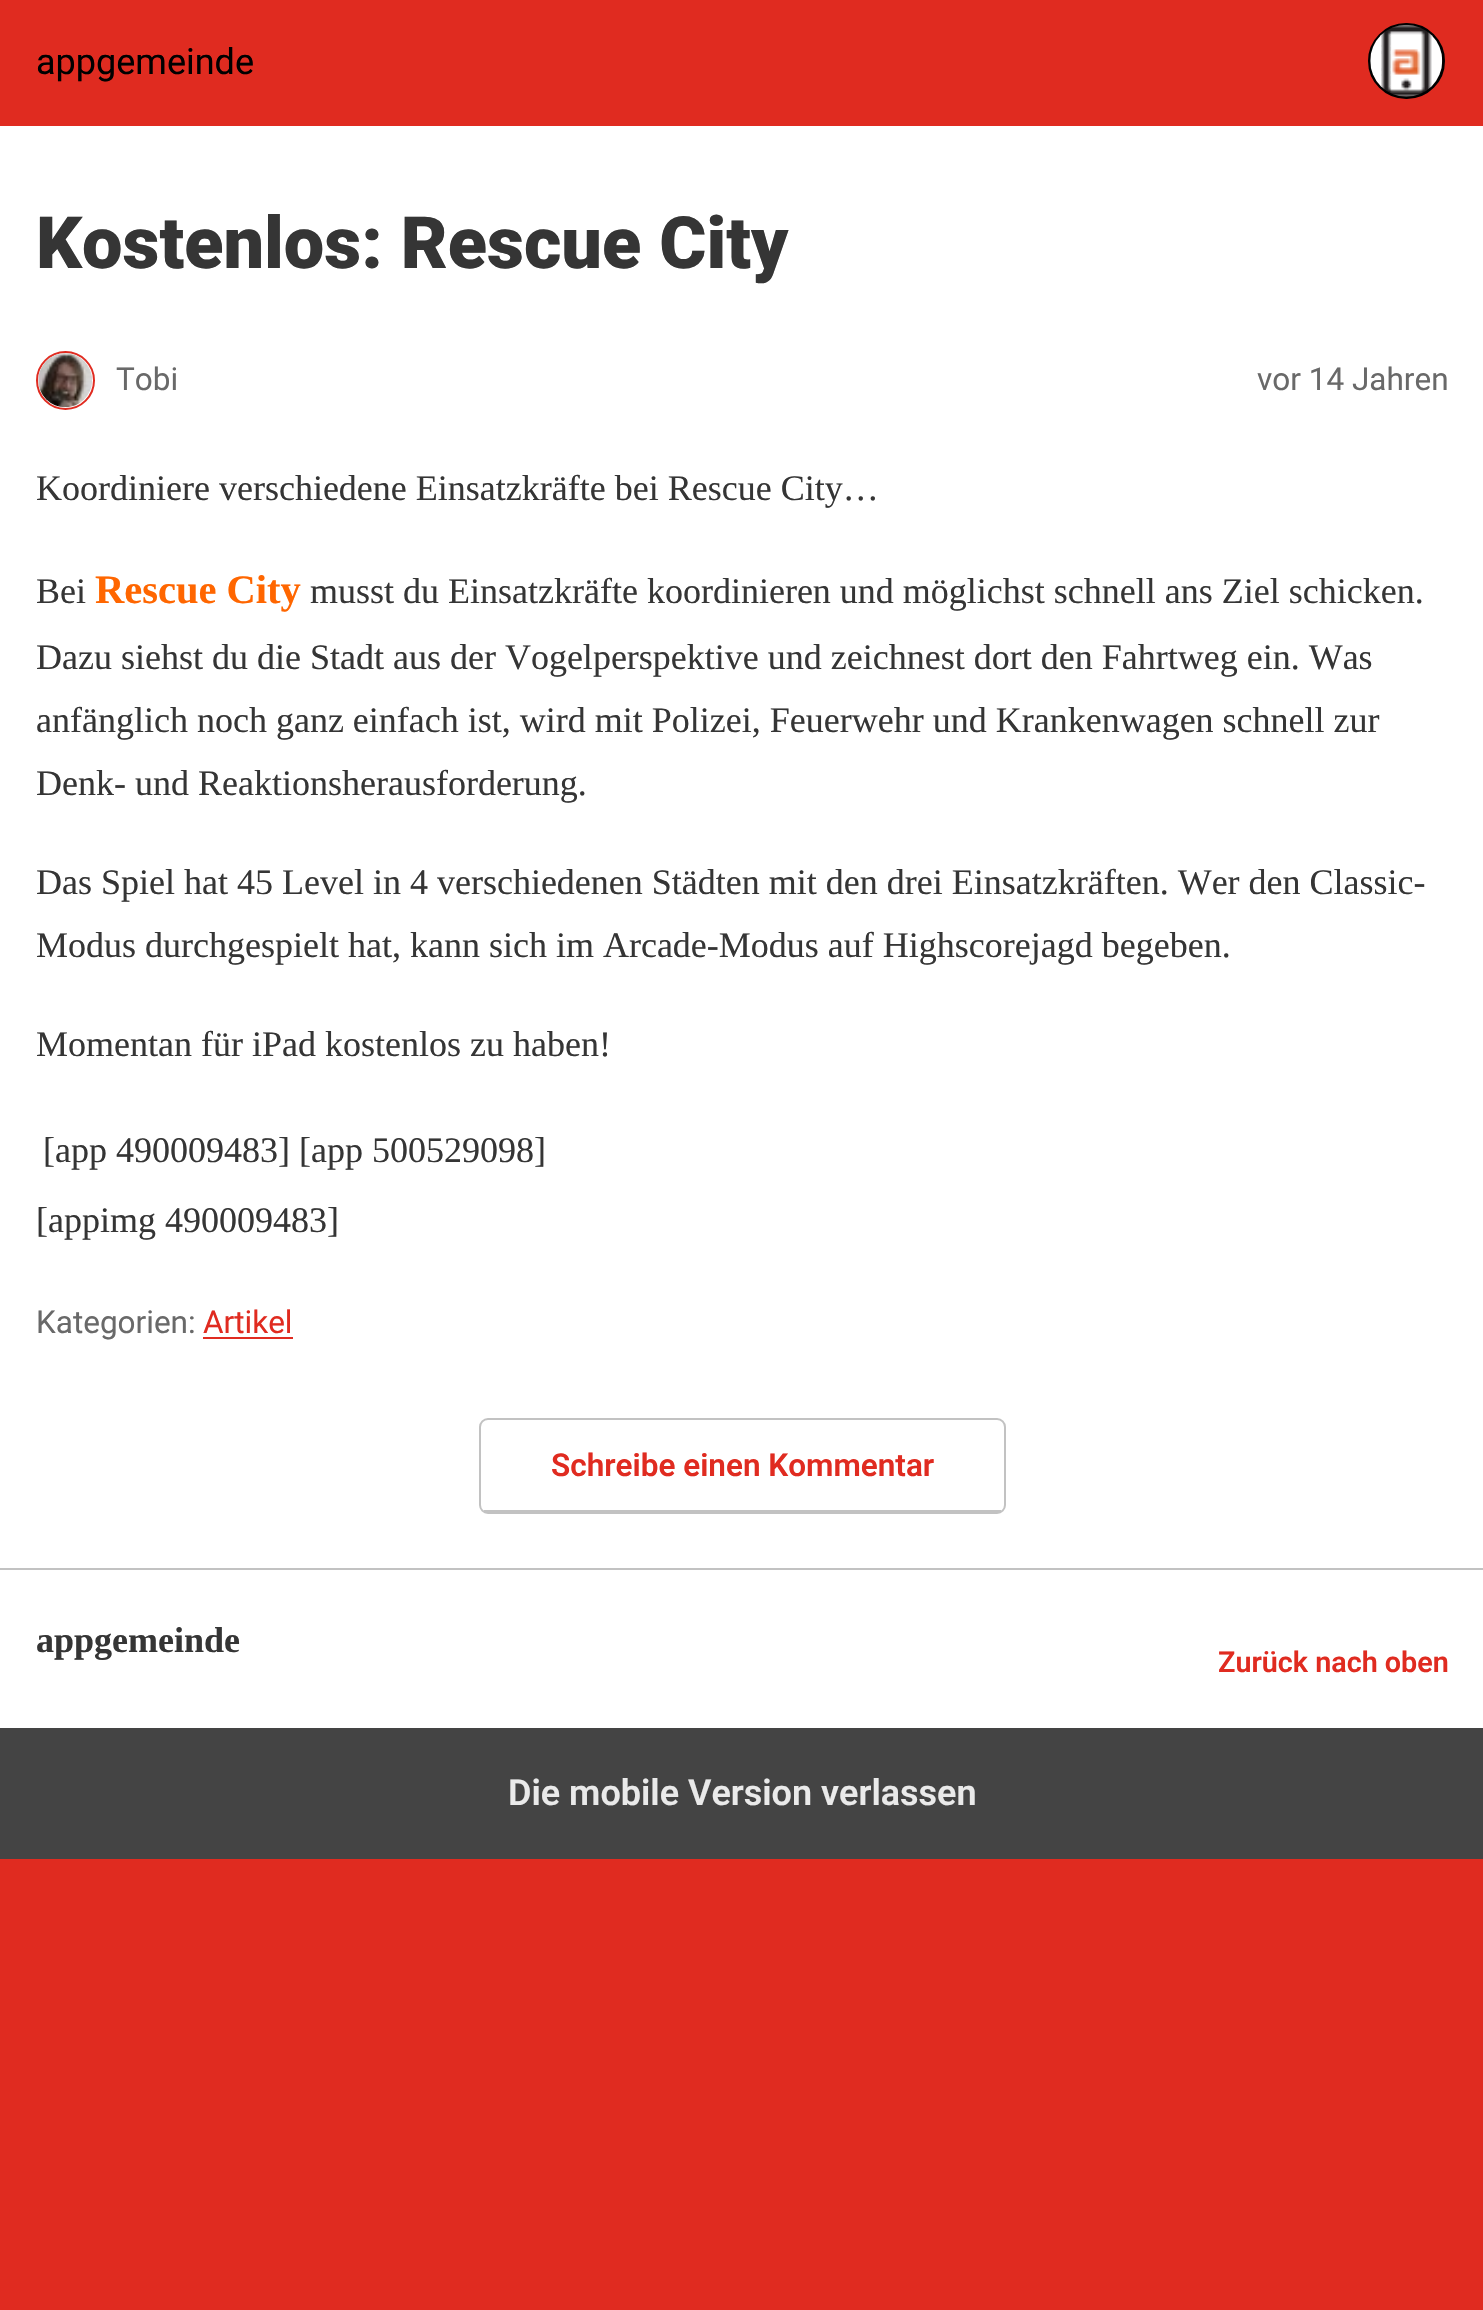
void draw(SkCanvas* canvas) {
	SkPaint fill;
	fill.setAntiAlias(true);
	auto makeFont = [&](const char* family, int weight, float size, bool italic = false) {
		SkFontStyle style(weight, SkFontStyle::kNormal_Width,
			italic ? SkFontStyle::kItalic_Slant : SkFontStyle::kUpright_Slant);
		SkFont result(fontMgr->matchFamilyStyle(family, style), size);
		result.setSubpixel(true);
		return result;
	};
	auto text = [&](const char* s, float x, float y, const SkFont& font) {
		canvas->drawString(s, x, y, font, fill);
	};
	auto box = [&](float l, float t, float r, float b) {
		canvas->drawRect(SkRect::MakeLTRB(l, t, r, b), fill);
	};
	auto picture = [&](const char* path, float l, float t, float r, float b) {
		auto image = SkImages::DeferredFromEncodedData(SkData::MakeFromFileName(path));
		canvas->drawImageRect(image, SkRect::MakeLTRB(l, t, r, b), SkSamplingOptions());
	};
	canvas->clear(0xFFE02B20);
	fill.setColor(0xFFFFFFFF);
	box(0, 126, 1483, 1728);
	fill.setColor(0xFF000000);
	canvas->drawRoundRect(SkRect::MakeLTRB(1369, 24, 1444, 98), 37, 37, fill);
	fill.setStyle(SkPaint::kStroke_Style);
	fill.setStrokeWidth(2);
	canvas->drawRoundRect(SkRect::MakeLTRB(1369, 24, 1444, 98), 37, 37, fill);
	picture("image0.png", 1370, 24, 1443, 97);
	fill.setColor(0xFFE02B20);
	canvas->drawCircle(65.5f, 380.5f, 28.5f, fill);
	picture("image1.png", 38, 353, 92, 408);
	fill.setStyle(SkPaint::kFill_Style);
	box(203, 1337, 293, 1339);
	fill.setStyle(SkPaint::kStroke_Style);
	fill.setColor(0xFFC2C2C2);
	canvas->drawRoundRect(SkRect::MakeLTRB(480, 1419, 1005, 1513), 8, 8, fill);
	fill.setStyle(SkPaint::kFill_Style);
	box(484, 1510, 1001, 1512);
	box(0, 1568, 1483, 1570);
	fill.setColor(0xFF444444);
	box(0, 1728, 1483, 1859);
	auto font1 = makeFont("Roboto", 400, 36);
	fill.setColor(0xFF000000);
	text("appgemeinde", 36, 74, font1);
	auto font2 = makeFont("Roboto", 900, 72);
	fill.setColor(0xFF353535);
	text("Kostenlos: Rescue City", 36, 268, font2);
	auto font3 = makeFont("Roboto", 400, 31.5f);
	fill.setColor(0xFF696969);
	text("Tobi", 116, 390, font3);
	text("vor 14 Jahren", 1257, 390, font3);
	auto font4 = makeFont("Liberation Serif", 400, 36);
	fill.setColor(0xFF353535);
	text("Koordiniere verschiedene Einsatzkräfte bei Rescue City…", 36, 500, font4);
	text("Bei", 36, 603, font4);
	auto font5 = makeFont("Liberation Serif", 700, 40.5f);
	fill.setColor(0xFFFF6600);
	text("Rescue City", 95, 603, font5);
	fill.setColor(0xFF353535);
	text("musst du Einsatzkräfte koordinieren und möglichst schnell ans Ziel schicken.", 310, 603, font4);
	text("Dazu siehst du die Stadt aus der Vogelperspektive und zeichnest dort den Fahrtweg ein. Was", 36, 669, font4);
	text("anfänglich noch ganz einfach ist, wird mit Polizei, Feuerwehr und Krankenwagen schnell zur", 36, 732, font4);
	text("Denk- und Reaktionsherausforderung.", 36, 795, font4);
	text("Das Spiel hat 45 Level in 4 verschiedenen Städten mit den drei Einsatzkräften. Wer den Classic-", 36, 894, font4);
	text("Modus durchgespielt hat, kann sich im Arcade-Modus auf Highscorejagd begeben.", 36, 957, font4);
	text("Momentan für iPad kostenlos zu haben!", 36, 1056, font4);
	text("[app 490009483] [app 500529098]", 43, 1162, font4);
	text("[appimg 490009483]", 36, 1232, font4);
	fill.setColor(0xFF696969);
	text("Kategorien:", 36, 1333, font3);
	fill.setColor(0xFFE02B20);
	text("Artikel", 203, 1333, font3);
	auto font6 = makeFont("Roboto", 600, 31.5f);
	text("Schreibe einen Kommentar", 551, 1476, font6);
	auto font7 = makeFont("Liberation Serif", 700, 36);
	fill.setColor(0xFF353535);
	text("appgemeinde", 36, 1652, font7);
	auto font8 = makeFont("Roboto", 600, 28.75f);
	fill.setColor(0xFFE02B20);
	text("Zurück nach oben", 1218, 1672, font8);
	auto font9 = makeFont("Roboto", 600, 36);
	fill.setColor(0xFFEAEAEA);
	text("Die mobile Version verlassen", 508, 1805, font9);
}
